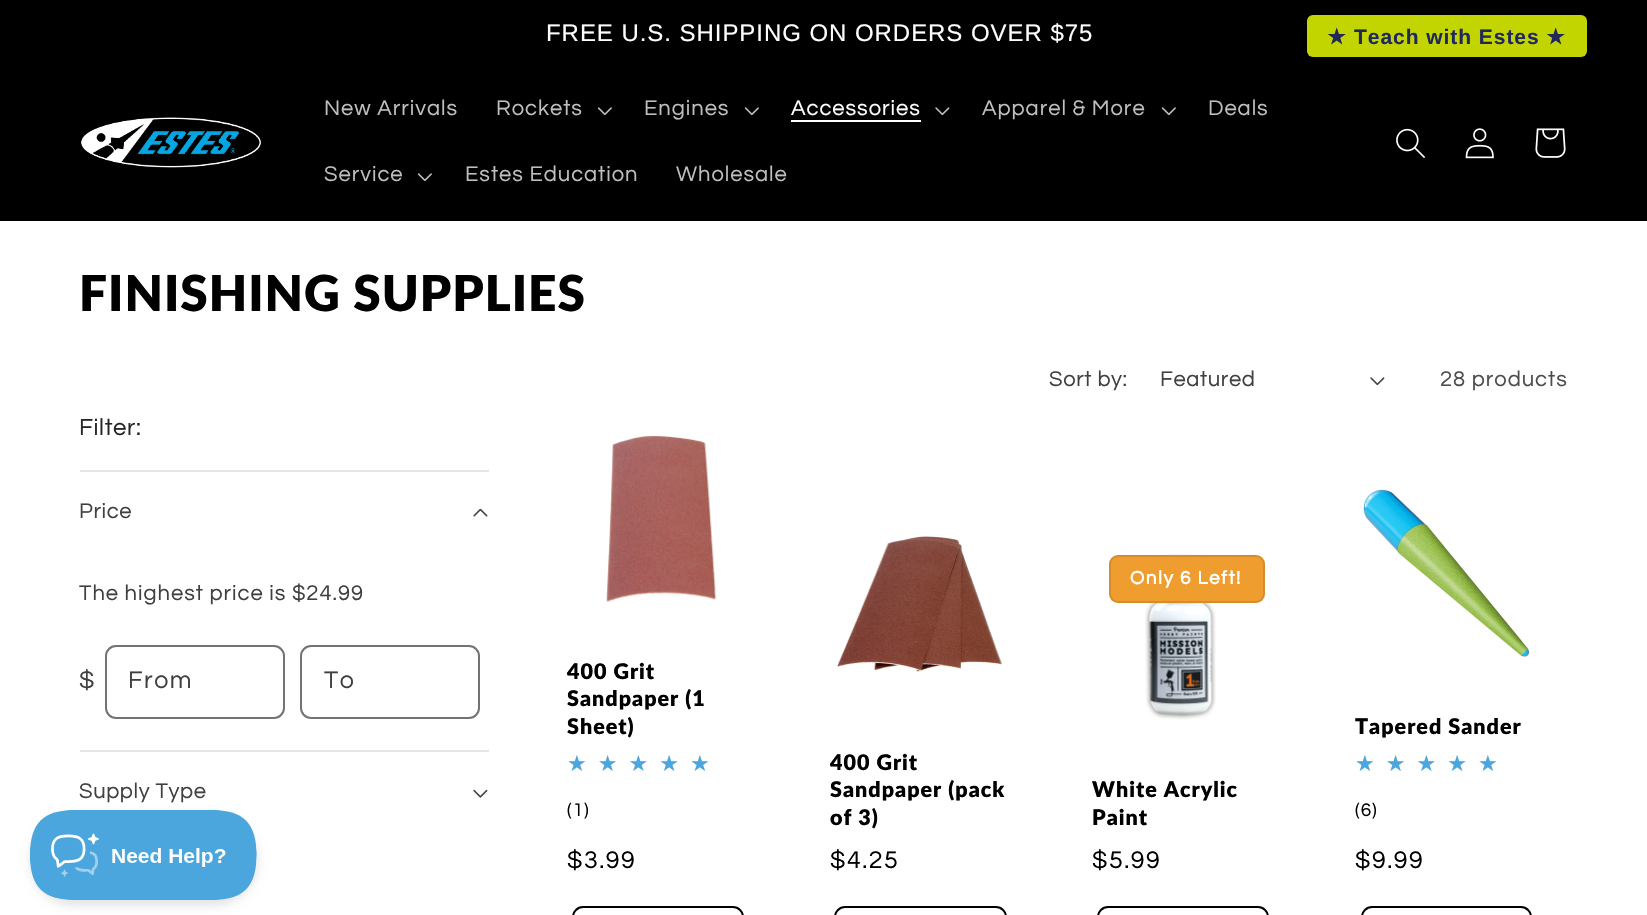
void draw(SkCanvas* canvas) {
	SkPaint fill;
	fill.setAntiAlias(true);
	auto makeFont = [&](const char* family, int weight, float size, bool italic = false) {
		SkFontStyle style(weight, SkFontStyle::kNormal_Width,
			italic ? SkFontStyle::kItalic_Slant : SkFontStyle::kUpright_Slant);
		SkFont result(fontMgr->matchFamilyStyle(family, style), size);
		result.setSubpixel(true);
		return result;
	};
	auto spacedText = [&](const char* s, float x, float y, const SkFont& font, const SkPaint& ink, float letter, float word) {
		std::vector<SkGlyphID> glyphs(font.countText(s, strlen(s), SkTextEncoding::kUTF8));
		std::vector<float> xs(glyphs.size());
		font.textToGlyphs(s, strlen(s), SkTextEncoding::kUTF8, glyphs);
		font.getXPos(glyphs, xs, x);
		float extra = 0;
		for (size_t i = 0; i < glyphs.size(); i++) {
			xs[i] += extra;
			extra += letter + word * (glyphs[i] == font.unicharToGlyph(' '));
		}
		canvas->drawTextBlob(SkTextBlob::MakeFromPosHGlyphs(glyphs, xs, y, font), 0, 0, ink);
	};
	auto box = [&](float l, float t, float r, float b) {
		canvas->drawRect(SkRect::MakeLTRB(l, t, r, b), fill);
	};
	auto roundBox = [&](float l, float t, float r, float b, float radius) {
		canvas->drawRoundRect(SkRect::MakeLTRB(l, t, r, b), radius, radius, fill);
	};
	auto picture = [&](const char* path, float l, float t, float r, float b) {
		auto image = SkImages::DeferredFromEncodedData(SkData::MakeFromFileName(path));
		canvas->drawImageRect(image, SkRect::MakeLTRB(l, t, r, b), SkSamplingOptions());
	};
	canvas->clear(0xFFFFFFFF);
	fill.setColor(0xFF000000);
	box(0, 0, 1647, 221);
	fill.setColor(0xFFC2D500);
	roundBox(1307, 15, 1587, 57, 6);
	picture("image0.png", 81, 117, 261, 168);
	picture("image1.png", 597, 107, 612, 116);
	picture("image1.png", 744, 107, 759, 116);
	fill.setColor(0xFFFFFFFF);
	box(791, 120, 921, 122);
	picture("image2.png", 935, 107, 950, 116);
	picture("image1.png", 1161, 107, 1176, 116);
	picture("image1.png", 417, 173, 432, 182);
	picture("image3.png", 1396, 128, 1425, 158);
	picture("image4.png", 1465, 128, 1494, 159);
	picture("image5.png", 1535, 128, 1566, 158);
	picture("image6.png", 1370, 377, 1385, 386);
	fill.setColor(0xFFE6E6E6);
	box(80, 470, 489, 472);
	picture("image7.png", 473, 509, 488, 517);
	fill.setStyle(SkPaint::kStroke_Style);
	fill.setStrokeWidth(2);
	fill.setColor(0xFF737373);
	canvas->drawRoundRect(SkRect::MakeLTRB(106, 646, 284, 718), 10, 10, fill);
	canvas->drawRoundRect(SkRect::MakeLTRB(301, 646, 479, 718), 10, 10, fill);
	fill.setStyle(SkPaint::kFill_Style);
	fill.setColor(0xFFE6E6E6);
	box(80, 750, 489, 752);
	picture("image8.png", 473, 789, 488, 798);
	picture("image9.png", 606, 436, 717, 603);
	fill.setStyle(SkPaint::kStroke_Style);
	fill.setColor(0xFF000000);
	canvas->drawRoundRect(SkRect::MakeLTRB(573, 907, 743, 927), 10, 10, fill);
	picture("image10.png", 837, 536, 1002, 672);
	canvas->drawRoundRect(SkRect::MakeLTRB(835, 907, 1006, 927), 10, 10, fill);
	picture("image11.png", 1145, 554, 1216, 720);
	fill.setStyle(SkPaint::kFill_Style);
	fill.setColor(0xFFEE9D2E);
	roundBox(1109, 555, 1265, 603, 9);
	fill.setStyle(SkPaint::kStroke_Style);
	fill.setColor(0x1A000000);
	canvas->drawRoundRect(SkRect::MakeLTRB(1110, 556, 1264, 602), 8, 8, fill);
	fill.setColor(0xFF000000);
	canvas->drawRoundRect(SkRect::MakeLTRB(1098, 907, 1268, 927), 10, 10, fill);
	picture("image12.png", 1363, 489, 1530, 657);
	canvas->drawRoundRect(SkRect::MakeLTRB(1362, 907, 1531, 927), 10, 10, fill);
	fill.setStyle(SkPaint::kFill_Style);
	fill.setColor(0x1A000000);
	fill.setMaskFilter(SkMaskFilter::MakeBlur(kNormal_SkBlurStyle, 5));
	canvas->drawRoundRect(SkRect::MakeLTRB(30, 816, 258, 906), 45, 45, fill);
	fill.setMaskFilter(nullptr);
	picture("image13.png", 30, 810, 257, 900);
	auto font1 = makeFont("Liberation Sans", 400, 24);
	fill.setColor(0xFFFFFFFF);
	spacedText("FREE U.S. SHIPPING ON ORDERS OVER $75", 546, 41, font1, fill, 0.95f, 0);
	auto font2 = makeFont("DejaVu Sans", 700, 21);
	fill.setColor(0xFF21285A);
	spacedText("★", 1327, 44, font2, fill, 0.95f, 0);
	auto font3 = makeFont("Liberation Sans", 700, 21);
	spacedText("Teach with Estes", 1354, 44, font3, fill, 0.95f, 0);
	spacedText("★", 1546, 44, font2, fill, 0.95f, 0);
	auto font4 = makeFont("Questrial", 400, 22);
	fill.setColor(0xFFBFBFBF);
	spacedText("New Arrivals", 324, 115, font4, fill, 0.95f, 0);
	spacedText("Rockets", 496, 115, font4, fill, 0.95f, 0);
	spacedText("Engines", 644, 115, font4, fill, 0.95f, 0);
	fill.setColor(0xFFFFFFFF);
	spacedText("Accessories", 791, 115, font4, fill, 0.95f, 0);
	fill.setColor(0xFFBFBFBF);
	spacedText("Apparel & More", 982, 115, font4, fill, 0.95f, 0);
	spacedText("Deals", 1208, 115, font4, fill, 0.95f, 0);
	spacedText("Service", 324, 181, font4, fill, 0.95f, 0);
	spacedText("Estes Education", 465, 181, font4, fill, 0.95f, 0);
	spacedText("Wholesale", 676, 181, font4, fill, 0.95f, 0);
	auto font5 = makeFont("Lato", 800, 49.5f);
	fill.setColor(0xFF000000);
	spacedText("FINISHING SUPPLIES", 79, 311, font5, fill, 1, 0);
	fill.setColor(0xFF404040);
	spacedText("Sort by:", 1049, 386, font4, fill, 0.6f, 0);
	spacedText("Featured", 1160, 386, font4, fill, 0.6f, 0);
	fill.setColor(0xFF4D4D4D);
	spacedText("28 products", 1440, 386, font4, fill, 0.95f, 0);
	auto font6 = makeFont("Questrial", 400, 24);
	fill.setColor(0xFF262626);
	spacedText("Filter:", 79, 435, font6, fill, 0.6f, 0);
	fill.setColor(0xFF404040);
	spacedText("Price", 79, 518, font4, fill, 0.6f, 0);
	spacedText("The highest price is $24.99", 79, 600, font4, fill, 0.95f, 0);
	auto font7 = makeFont("Questrial", 400, 25);
	spacedText("$", 79, 688, font7, fill, 0.95f, 0);
	spacedText("From", 128, 688, font7, fill, 1.5f, 0);
	spacedText("To", 324, 688, font7, fill, 1.5f, 0);
	spacedText("Supply Type", 79, 798, font4, fill, 0.6f, 0);
	auto font8 = makeFont("Lato", 800, 21.5f);
	fill.setColor(0xFF000000);
	spacedText("400 Grit", 567, 679, font8, fill, 1, 0);
	spacedText("Sandpaper (1", 567, 706, font8, fill, 1, 0);
	spacedText("Sheet)", 567, 734, font8, fill, 1, 0);
	auto font9 = makeFont("DejaVu Sans", 400, 22);
	{
		const SkColor colors[] = {0xFF4BA6DE, 0xFFD9D9D9};
		const float stops[] = {1, 1};
		const SkPoint ends[] = {{567, 763}, {721, 763}};
		fill.setShader(SkGradientShader::MakeLinear(ends, colors, stops, 2, SkTileMode::kClamp));
		fill.setAlpha(255);
	}
	spacedText("★★★★★", 567, 771, font9, fill, 11, 0);
	auto font10 = makeFont("Questrial", 400, 19);
	fill.setShader(nullptr);
	fill.setColor(0xFF000000);
	spacedText("(1)", 567, 816, font10, fill, 1, 0);
	spacedText("$3.99", 567, 868, font7, fill, 1.5f, 0);
	spacedText("400 Grit", 830, 770, font8, fill, 1, 0);
	spacedText("Sandpaper (pack", 830, 797, font8, fill, 1, 0);
	spacedText("of 3)", 830, 825, font8, fill, 1, 0);
	spacedText("$4.25", 830, 868, font7, fill, 1.5f, 0);
	auto font11 = makeFont("Questrial", 700, 19);
	fill.setColor(0xFFFFFFFF);
	spacedText("Only 6 Left!", 1130, 584, font11, fill, 1.5f, 0);
	fill.setColor(0xFF000000);
	spacedText("White Acrylic", 1092, 797, font8, fill, 1, 0);
	spacedText("Paint", 1092, 825, font8, fill, 1, 0);
	spacedText("$5.99", 1092, 868, font7, fill, 1.5f, 0);
	spacedText("Tapered Sander", 1355, 734, font8, fill, 1, 0);
	{
		const SkColor colors[] = {0xFF4BA6DE, 0xFFD9D9D9};
		const float stops[] = {0.93f, 0.93f};
		const SkPoint ends[] = {{1355, 763}, {1509, 763}};
		fill.setShader(SkGradientShader::MakeLinear(ends, colors, stops, 2, SkTileMode::kClamp));
		fill.setAlpha(255);
	}
	spacedText("★★★★★", 1355, 771, font9, fill, 11, 0);
	fill.setShader(nullptr);
	fill.setColor(0xFF000000);
	spacedText("(6)", 1355, 816, font10, fill, 1, 0);
	spacedText("$9.99", 1355, 868, font7, fill, 1.5f, 0);
}
